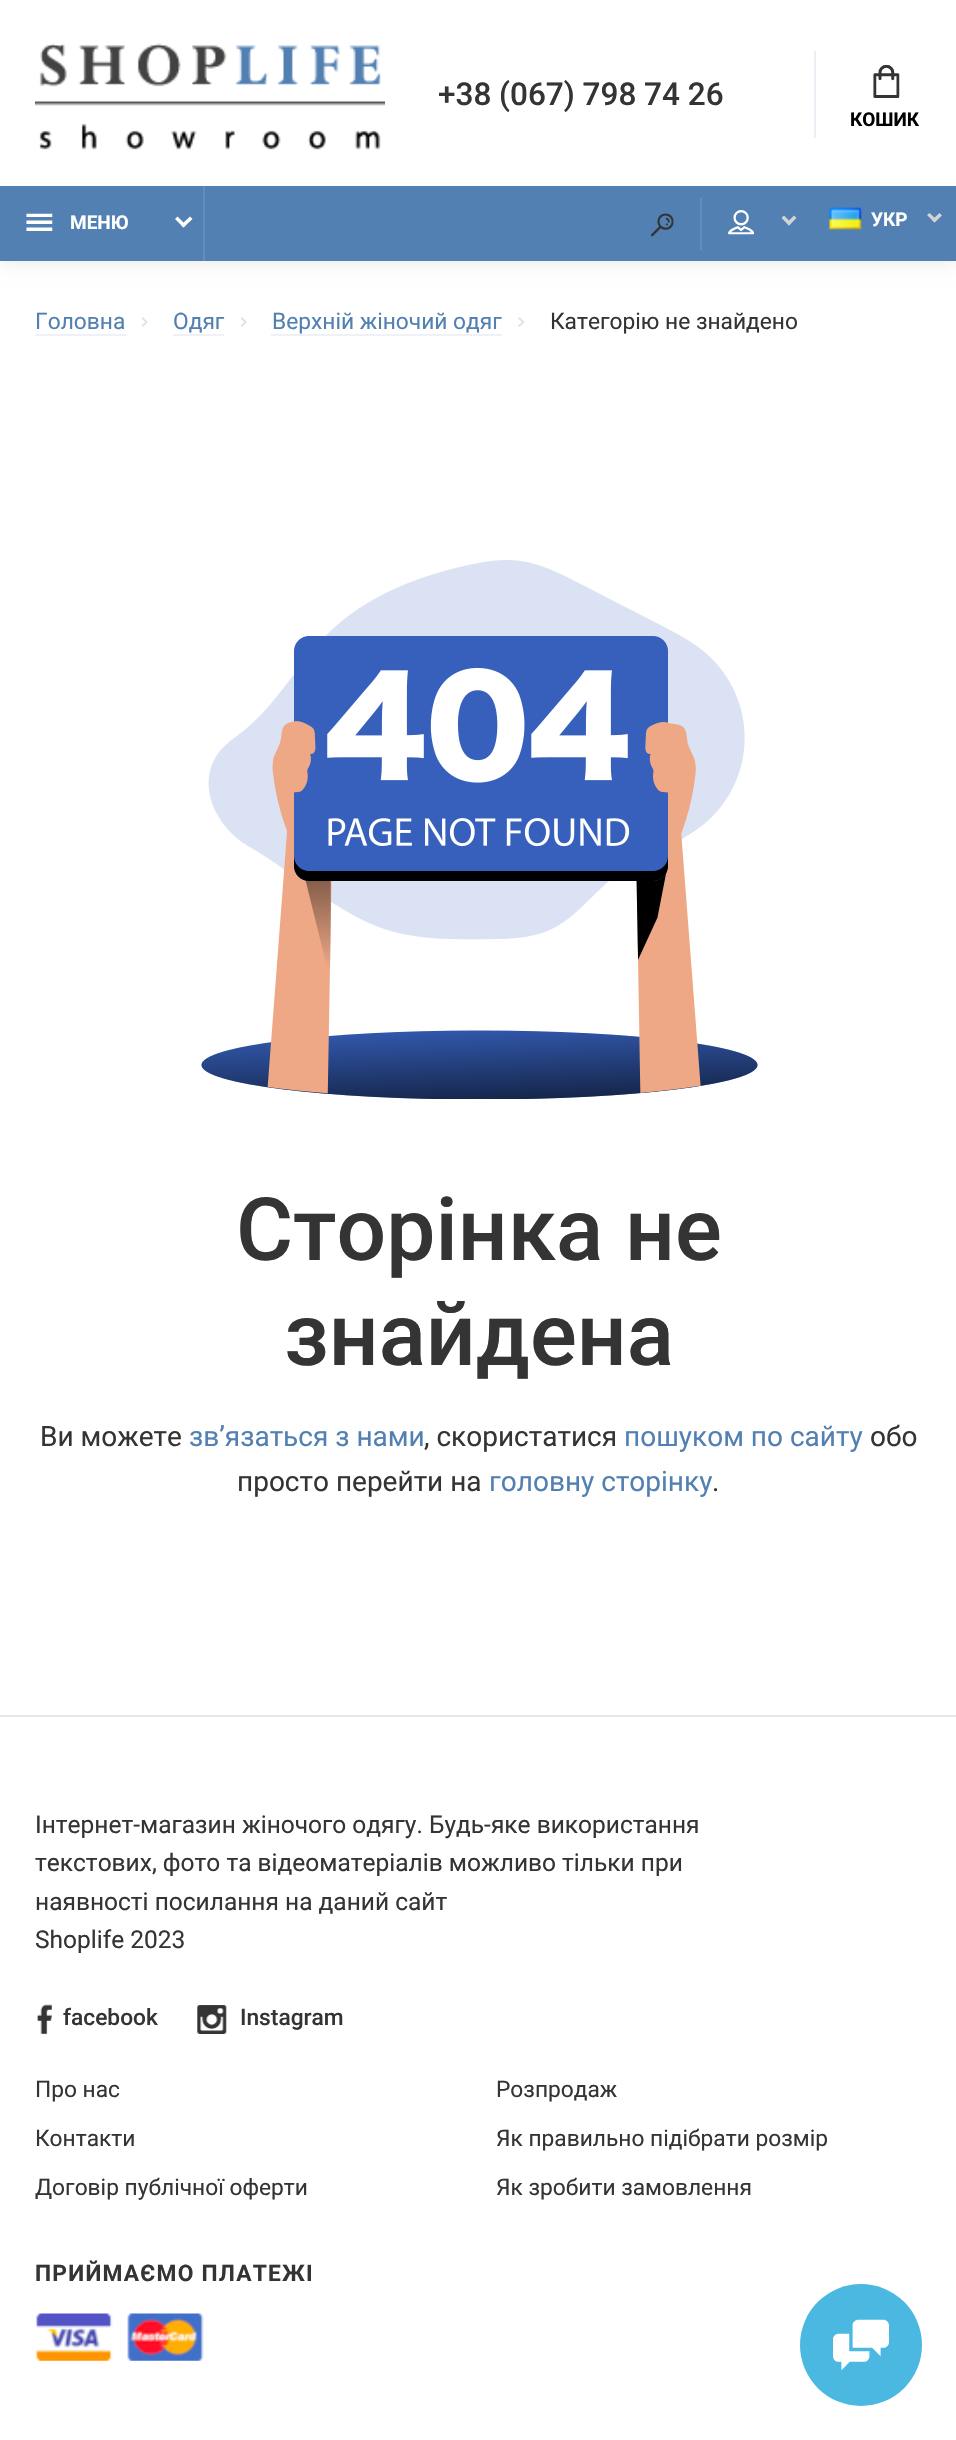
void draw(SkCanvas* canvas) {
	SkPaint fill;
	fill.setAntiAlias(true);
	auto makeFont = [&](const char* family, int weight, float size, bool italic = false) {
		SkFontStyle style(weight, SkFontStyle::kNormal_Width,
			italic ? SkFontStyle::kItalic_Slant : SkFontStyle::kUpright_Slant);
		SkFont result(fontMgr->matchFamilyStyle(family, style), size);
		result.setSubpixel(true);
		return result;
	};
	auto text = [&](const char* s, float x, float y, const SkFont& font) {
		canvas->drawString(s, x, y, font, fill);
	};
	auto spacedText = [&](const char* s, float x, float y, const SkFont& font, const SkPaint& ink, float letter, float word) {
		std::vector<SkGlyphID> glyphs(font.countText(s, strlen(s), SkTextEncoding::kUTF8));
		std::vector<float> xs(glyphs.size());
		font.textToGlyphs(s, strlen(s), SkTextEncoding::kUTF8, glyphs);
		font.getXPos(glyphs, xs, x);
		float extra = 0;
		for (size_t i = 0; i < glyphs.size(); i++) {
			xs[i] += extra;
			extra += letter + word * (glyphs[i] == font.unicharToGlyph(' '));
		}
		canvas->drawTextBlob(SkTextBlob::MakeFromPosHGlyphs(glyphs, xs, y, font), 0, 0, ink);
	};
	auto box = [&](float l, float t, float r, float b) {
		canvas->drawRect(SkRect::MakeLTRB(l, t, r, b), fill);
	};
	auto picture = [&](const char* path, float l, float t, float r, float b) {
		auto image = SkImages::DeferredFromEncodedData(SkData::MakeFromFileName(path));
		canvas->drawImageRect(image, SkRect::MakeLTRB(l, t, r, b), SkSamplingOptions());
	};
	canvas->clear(0xFFFFFFFF);
	fill.setColor(0x1A000000);
	fill.setMaskFilter(SkMaskFilter::MakeBlur(kNormal_SkBlurStyle, 9));
	canvas->drawRect(SkRect::MakeLTRB(0, 0, 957, 261), fill);
	fill.setMaskFilter(nullptr);
	fill.setColor(0xFFFFFFFF);
	box(0, 0, 956, 186);
	picture("image0.png", 35, 43, 385, 150);
	fill.setColor(0xFFEAEFF5);
	box(814, 51, 816, 138);
	picture("image1.png", 873, 64, 900, 98);
	fill.setColor(0xFF5280B2);
	box(0, 186, 956, 261);
	fill.setColor(0xFF638DBA);
	box(203, 186, 205, 261);
	picture("image2.png", 26, 213, 53, 231);
	fill.setColor(0xFFFFFFFF);
	canvas->drawPath(SkPathBuilder().moveTo(190, 216.5f).lineTo(192.5f, 219).lineTo(183.5f, 227.5f).lineTo(181, 225).close().detach(), fill);
	canvas->drawPath(SkPathBuilder().moveTo(177.5f, 216.5f).lineTo(186, 225).lineTo(183.5f, 227.5f).lineTo(175, 219).close().detach(), fill);
	picture("image3.png", 651, 213, 674, 237);
	fill.setColor(0xFF638DBA);
	box(700, 198, 702, 250);
	picture("image4.png", 728, 210, 755, 235);
	fill.setColor(0xFFD4D4D4);
	canvas->drawPath(SkPathBuilder().moveTo(794, 215.5f).lineTo(796.5f, 218).lineTo(789, 225.5f).lineTo(786.5f, 223).close().detach(), fill);
	canvas->drawPath(SkPathBuilder().moveTo(784, 215.5f).lineTo(791.5f, 223).lineTo(789, 225.5f).lineTo(781.5f, 218).close().detach(), fill);
	picture("image5.png", 828, 207, 862, 230);
	canvas->drawPath(SkPathBuilder().moveTo(939.5f, 213).lineTo(942, 215.5f).lineTo(934.5f, 222.5f).lineTo(932, 220).close().detach(), fill);
	canvas->drawPath(SkPathBuilder().moveTo(929.5f, 213).lineTo(937, 220).lineTo(934.5f, 222.5f).lineTo(927, 215).close().detach(), fill);
	fill.setColor(0xFFEEF2F7);
	box(35, 334, 126, 336);
	fill.setColor(0xFFE2E2E2);
	canvas->drawPath(SkPathBuilder().moveTo(141.5f, 318.5f).lineTo(143, 317).lineTo(147.5f, 322).lineTo(146.5f, 323).close().detach(), fill);
	canvas->drawPath(SkPathBuilder().moveTo(141.5f, 325.5f).lineTo(146.5f, 321).lineTo(147.5f, 322).lineTo(143, 327).close().detach(), fill);
	fill.setColor(0xFFEEF2F7);
	box(173, 334, 224, 336);
	fill.setColor(0xFFE2E2E2);
	canvas->drawPath(SkPathBuilder().moveTo(240.5f, 318.5f).lineTo(242, 317).lineTo(247, 322).lineTo(245.5f, 323).close().detach(), fill);
	canvas->drawPath(SkPathBuilder().moveTo(240.5f, 325.5f).lineTo(245.5f, 321).lineTo(247, 322).lineTo(242, 327).close().detach(), fill);
	fill.setColor(0xFFEEF2F7);
	box(271, 334, 502, 336);
	fill.setColor(0xFFE2E2E2);
	canvas->drawPath(SkPathBuilder().moveTo(518, 318.5f).lineTo(519.5f, 317).lineTo(524.5f, 322).lineTo(523, 323).close().detach(), fill);
	canvas->drawPath(SkPathBuilder().moveTo(518, 325.5f).lineTo(523, 321).lineTo(524.5f, 322).lineTo(519.5f, 327).close().detach(), fill);
	picture("image6.png", 201, 560, 758, 1099);
	fill.setColor(0xFFE8E8E8);
	box(0, 1715, 956, 1717);
	picture("image7.png", 37, 2004, 52, 2035);
	picture("image8.png", 197, 2005, 227, 2034);
	picture("image9.png", 35, 2313, 204, 2361);
	fill.setColor(0xFF4BB8E2);
	canvas->drawCircle(861, 2345, 61, fill);
	picture("image10.png", 833, 2319, 889, 2370);
	auto font1 = makeFont("Roboto", 500, 31.5f);
	fill.setColor(0xFF343434);
	text("+38 (067) 798 74 26", 438, 105, font1);
	auto font2 = makeFont("Roboto", 700, 19);
	fill.setColor(0xFF000000);
	text("КОШИК", 850, 126, font2);
	fill.setColor(0xFFFFFFFF);
	text("МЕНЮ", 70, 229, font2);
	text("УКР", 871, 226, font2);
	auto font3 = makeFont("Roboto", 400, 22.75f);
	fill.setColor(0xFF5280B2);
	text("Головна", 35, 329, font3);
	text("Одяг", 173, 329, font3);
	text("Верхній жіночий одяг", 272, 329, font3);
	fill.setColor(0xFF343434);
	text("Категорію не знайдено", 550, 329, font3);
	auto font4 = makeFont("Roboto", 500, 87.5f);
	text("Сторінка не", 236, 1260, font4);
	text("знайдена", 284, 1365, font4);
	auto font5 = makeFont("Roboto", 400, 28);
	text("Ви можете", 40, 1446, font5);
	fill.setColor(0xFF5280B2);
	text("зв’язаться з нами", 189, 1446, font5);
	fill.setColor(0xFF343434);
	text(", скористатися", 424, 1446, font5);
	fill.setColor(0xFF5280B2);
	text("пошуком по сайту", 624, 1446, font5);
	fill.setColor(0xFF343434);
	text("обо", 870, 1446, font5);
	text("просто перейти на", 237, 1491, font5);
	fill.setColor(0xFF5280B2);
	text("головну сторінку", 489, 1491, font5);
	fill.setColor(0xFF343434);
	text(".", 712, 1491, font5);
	auto font6 = makeFont("Roboto", 400, 24.5f);
	text("Інтернет-магазин жіночого одягу. Будь-яке використання", 35, 1833, font6);
	text("текстових, фото та відеоматеріалів можливо тільки при", 35, 1871, font6);
	text("наявності посилання на даний сайт", 35, 1910, font6);
	text("Shoplife 2023", 35, 1948, font6);
	auto font7 = makeFont("Roboto", 500, 22.75f);
	text("facebook", 63, 2025, font7);
	text("Instagram", 240, 2025, font7);
	text("Про нас", 35, 2097, font3);
	text("Контакти", 35, 2146, font3);
	text("Договір публічної оферти", 35, 2195, font3);
	text("Розпродаж", 496, 2097, font3);
	text("Як правильно підібрати розмір", 496, 2146, font3);
	text("Як зробити замовлення", 496, 2195, font3);
	auto font8 = makeFont("Roboto", 700, 22.75f);
	spacedText("ПРИЙМАЄМО ПЛАТЕЖІ", 35, 2281, font8, fill, 1.25f, 0);
}
